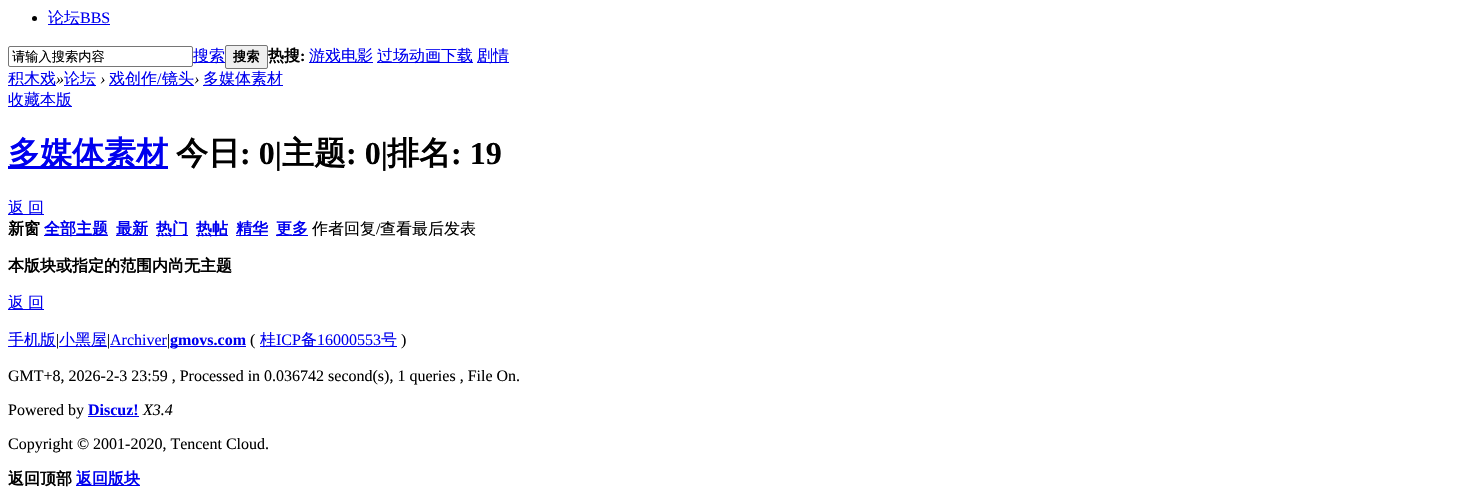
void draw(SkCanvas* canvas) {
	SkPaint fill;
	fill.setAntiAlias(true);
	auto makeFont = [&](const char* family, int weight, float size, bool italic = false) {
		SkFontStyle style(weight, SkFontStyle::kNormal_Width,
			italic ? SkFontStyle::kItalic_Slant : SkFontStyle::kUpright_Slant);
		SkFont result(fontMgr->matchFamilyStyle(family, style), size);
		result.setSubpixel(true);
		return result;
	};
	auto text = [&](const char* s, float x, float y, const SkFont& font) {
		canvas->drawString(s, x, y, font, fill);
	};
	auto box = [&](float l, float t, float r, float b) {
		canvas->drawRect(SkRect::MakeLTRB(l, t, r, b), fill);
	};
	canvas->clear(0xFFFFFFFF);
	fill.setColor(0xFF000000);
	canvas->drawCircle(34.5f, 18.5f, 2.5f, fill);
	fill.setColor(0xFF0000EE);
	box(48, 24, 110, 25);
	fill.setStyle(SkPaint::kStroke_Style);
	fill.setStrokeWidth(1);
	fill.setColor(0xFF767676);
	canvas->drawRoundRect(SkRect::MakeLTRB(8.5f, 46.5f, 192.5f, 66.5f), 1.5f, 1.5f, fill);
	fill.setStyle(SkPaint::kFill_Style);
	fill.setColor(0xFF0000EE);
	box(193, 62, 225, 63);
	fill.setColor(0xFFEFEFEF);
	canvas->drawRoundRect(SkRect::MakeLTRB(225.5f, 45.5f, 267.5f, 68.5f), 1.5f, 1.5f, fill);
	fill.setStyle(SkPaint::kStroke_Style);
	fill.setColor(0xFF767676);
	canvas->drawRoundRect(SkRect::MakeLTRB(225.5f, 45.5f, 267.5f, 68.5f), 1.5f, 1.5f, fill);
	fill.setStyle(SkPaint::kFill_Style);
	fill.setColor(0xFF0000EE);
	box(309, 62, 373, 63);
	box(377, 62, 473, 63);
	box(477, 62, 509, 63);
	box(8, 85, 56, 86);
	box(64, 85, 96, 86);
	box(109, 85, 194, 86);
	box(203, 85, 283, 86);
	box(8, 106, 72, 107);
	box(8, 166, 168, 169);
	box(8, 214, 44, 215);
	box(44, 235, 108, 236);
	box(116, 235, 148, 236);
	box(156, 235, 188, 236);
	box(196, 235, 228, 236);
	box(236, 235, 268, 236);
	box(276, 235, 308, 236);
	box(8, 309, 44, 310);
	box(8, 346, 56, 347);
	box(59, 346, 107, 347);
	box(110, 346, 167, 347);
	box(170, 346, 246, 347);
	box(260, 346, 397, 347);
	box(88, 416, 139, 417);
	box(76, 485, 140, 486);
	auto font1 = makeFont("WenQuanYi Zen Hei", 500, 16);
	text("论坛", 48, 23, font1);
	auto font2 = makeFont("Liberation Serif", 400, 16);
	text("BBS", 80, 23, font2);
	auto font3 = makeFont("WenQuanYi Zen Hei", 500, 13.25f);
	fill.setColor(0xFF000000);
	text("请输入搜索内容", 12, 61, font3);
	fill.setColor(0xFF0000EE);
	text("搜索", 193, 61, font1);
	auto font4 = makeFont("WenQuanYi Zen Hei", 700, 13.25f);
	fill.setColor(0xFF000000);
	text("搜索", 233, 61, font4);
	auto font5 = makeFont("WenQuanYi Zen Hei", 700, 16);
	text("热搜", 268, 61, font5);
	auto font6 = makeFont("Liberation Serif", 700, 16);
	text(":", 300, 61, font6);
	fill.setColor(0xFF0000EE);
	text("游戏电影", 309, 61, font1);
	text("过场动画下载", 377, 61, font1);
	text("剧情", 477, 61, font1);
	text("积木戏", 8, 84, font1);
	auto font7 = makeFont("Liberation Serif", 400, 16, true);
	fill.setColor(0xFF000000);
	text("»", 56, 84, font7);
	fill.setColor(0xFF0000EE);
	text("论坛", 64, 84, font1);
	fill.setColor(0xFF000000);
	text("›", 100, 84, font7);
	fill.setColor(0xFF0000EE);
	text("戏创作", 109, 84, font1);
	text("/", 157, 84, font2);
	text("镜头", 162, 84, font1);
	fill.setColor(0xFF000000);
	text("›", 194, 84, font7);
	fill.setColor(0xFF0000EE);
	text("多媒体素材", 203, 84, font1);
	text("收藏本版", 8, 105, font1);
	auto font8 = makeFont("WenQuanYi Zen Hei", 700, 32);
	text("多媒体素材", 8, 164, font8);
	fill.setColor(0xFF000000);
	text("今日", 176, 164, font8);
	auto font9 = makeFont("Liberation Serif", 700, 32);
	text(": 0|", 240, 164, font9);
	text("主题", 282, 164, font8);
	text(": 0|", 346, 164, font9);
	text("排名", 387, 164, font8);
	text(": 19", 451, 164, font9);
	fill.setColor(0xFF0000EE);
	text("返", 8, 213, font1);
	text("回", 28, 213, font1);
	fill.setColor(0xFF000000);
	text("新窗", 8, 234, font5);
	fill.setColor(0xFF0000EE);
	text("全部主题", 44, 234, font5);
	text("最新", 116, 234, font5);
	text("热门", 156, 234, font5);
	text("热帖", 196, 234, font5);
	text("精华", 236, 234, font5);
	text("更多", 276, 234, font5);
	fill.setColor(0xFF000000);
	text("作者回复", 312, 234, font1);
	text("/", 376, 234, font2);
	text("查看最后发表", 380, 234, font1);
	text("本版块或指定的范围内尚无主题", 8, 271, font5);
	fill.setColor(0xFF0000EE);
	text("返", 8, 308, font1);
	text("回", 28, 308, font1);
	text("手机版", 8, 345, font1);
	fill.setColor(0xFF000000);
	text("|", 56, 345, font2);
	fill.setColor(0xFF0000EE);
	text("小黑屋", 59, 345, font1);
	fill.setColor(0xFF000000);
	text("|", 107, 345, font2);
	fill.setColor(0xFF0000EE);
	text("Archiver", 110, 345, font2);
	fill.setColor(0xFF000000);
	text("|", 167, 345, font2);
	fill.setColor(0xFF0000EE);
	text("gmovs.com", 170, 345, font6);
	fill.setColor(0xFF000000);
	text("(", 250, 345, font2);
	fill.setColor(0xFF0000EE);
	text("桂", 260, 345, font1);
	text("ICP", 276, 345, font2);
	text("备", 301, 345, font1);
	text("16000553", 317, 345, font2);
	text("号", 381, 345, font1);
	fill.setColor(0xFF000000);
	text(")", 401, 345, font2);
	text("GMT+8, 2026-2-3 23:59 , Processed in 0.036742 second(s), 1 queries , File On.", 8, 381, font2);
	text("Powered by", 8, 415, font2);
	fill.setColor(0xFF0000EE);
	text("Discuz!", 88, 415, font6);
	fill.setColor(0xFF000000);
	text("X3.4", 143, 415, font7);
	text("Copyright © 2001-2020, Tencent Cloud.", 8, 449, font2);
	text("返回顶部", 8, 484, font5);
	fill.setColor(0xFF0000EE);
	text("返回版块", 76, 484, font5);
}
